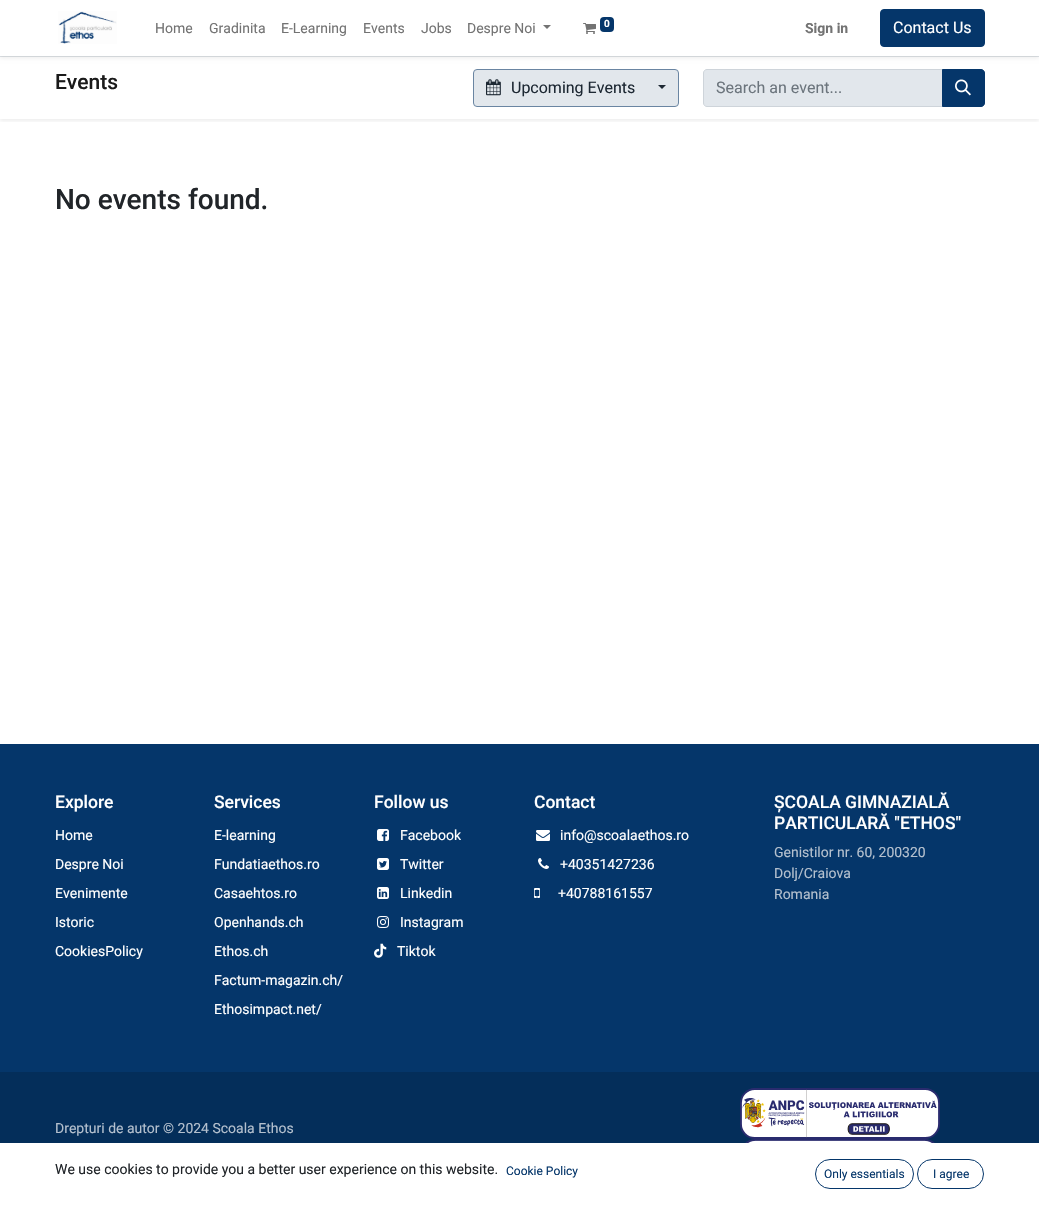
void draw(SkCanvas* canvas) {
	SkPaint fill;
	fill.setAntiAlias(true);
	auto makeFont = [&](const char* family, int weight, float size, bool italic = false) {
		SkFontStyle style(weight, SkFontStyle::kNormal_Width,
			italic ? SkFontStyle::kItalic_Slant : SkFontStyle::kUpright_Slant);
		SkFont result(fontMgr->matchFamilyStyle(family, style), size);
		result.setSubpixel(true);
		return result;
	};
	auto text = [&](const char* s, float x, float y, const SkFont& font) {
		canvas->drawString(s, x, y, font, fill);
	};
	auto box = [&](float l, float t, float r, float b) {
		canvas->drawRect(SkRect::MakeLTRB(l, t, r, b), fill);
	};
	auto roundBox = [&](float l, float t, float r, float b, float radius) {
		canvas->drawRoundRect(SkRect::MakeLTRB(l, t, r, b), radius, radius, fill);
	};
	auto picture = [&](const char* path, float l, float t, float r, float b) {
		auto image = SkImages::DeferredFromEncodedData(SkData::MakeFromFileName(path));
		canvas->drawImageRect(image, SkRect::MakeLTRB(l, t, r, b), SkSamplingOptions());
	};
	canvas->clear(0xFFFFFFFF);
	canvas->save();
	canvas->clipRect(SkRect::MakeLTRB(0, 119, 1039, 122));
	fill.setColor(0x12000000);
	fill.setMaskFilter(SkMaskFilter::MakeBlur(kNormal_SkBlurStyle, 2));
	canvas->drawRect(SkRect::MakeLTRB(0, 58, 1039, 121), fill);
	fill.setMaskFilter(nullptr);
	canvas->restore();
	fill.setColor(0xFFDEE2E6);
	box(0, 56, 1039, 57);
	fill.setColor(0x12000000);
	fill.setMaskFilter(SkMaskFilter::MakeBlur(kNormal_SkBlurStyle, 2));
	canvas->drawRect(SkRect::MakeLTRB(0, 2, 1039, 58), fill);
	fill.setMaskFilter(nullptr);
	fill.setColor(0xFFFFFFFF);
	box(0, 0, 1039, 56);
	picture("image0.png", 58, 11, 117, 44);
	fill.setColor(0xFF737373);
	canvas->drawPath(SkPathBuilder().moveTo(543, 25).lineTo(551, 25).lineTo(547, 29).close().detach(), fill);
	picture("image1.png", 583, 23, 596, 34);
	fill.setColor(0xFF05366A);
	roundBox(600, 17, 614, 32, 4);
	canvas->drawRoundRect(SkRect::MakeLTRB(880.5f, 9.5f, 984.5f, 46.5f), 3.5f, 3.5f, fill);
	fill.setStyle(SkPaint::kStroke_Style);
	fill.setStrokeWidth(1);
	canvas->drawRoundRect(SkRect::MakeLTRB(880.5f, 9.5f, 984.5f, 46.5f), 3.5f, 3.5f, fill);
	fill.setStyle(SkPaint::kFill_Style);
	fill.setColor(0xFFE2E7EC);
	canvas->drawRoundRect(SkRect::MakeLTRB(473.5f, 69.5f, 678.5f, 106.5f), 3.5f, 3.5f, fill);
	fill.setStyle(SkPaint::kStroke_Style);
	fill.setColor(0xFF6A85A2);
	canvas->drawRoundRect(SkRect::MakeLTRB(473.5f, 69.5f, 678.5f, 106.5f), 3.5f, 3.5f, fill);
	picture("image2.png", 486, 79, 501, 96);
	fill.setStyle(SkPaint::kFill_Style);
	fill.setColor(0xFF1D2833);
	canvas->drawPath(SkPathBuilder().moveTo(658, 85).lineTo(666, 85).lineTo(662, 89).close().detach(), fill);
	fill.setColor(0xFFE2E7EC);
	canvas->drawPath(SkPathBuilder().moveTo(707, 69.5f).lineTo(942.5f, 69.5f).lineTo(942.5f, 106.5f).lineTo(707, 106.5f).cubicTo(705, 106.5f, 703.5f, 105, 703.5f, 103).lineTo(703.5f, 73).cubicTo(703.5f, 71, 705, 69.5f, 707, 69.5f).close().detach(), fill);
	fill.setStyle(SkPaint::kStroke_Style);
	fill.setColor(0xFFCED4DA);
	canvas->drawPath(SkPathBuilder().moveTo(707, 69.5f).lineTo(942.5f, 69.5f).lineTo(942.5f, 106.5f).lineTo(707, 106.5f).cubicTo(705, 106.5f, 703.5f, 105, 703.5f, 103).lineTo(703.5f, 73).cubicTo(703.5f, 71, 705, 69.5f, 707, 69.5f).close().detach(), fill);
	fill.setStyle(SkPaint::kFill_Style);
	fill.setColor(0xFF05366A);
	canvas->drawPath(SkPathBuilder().moveTo(942.5f, 69.5f).lineTo(981, 69.5f).cubicTo(983, 69.5f, 984.5f, 71, 984.5f, 73).lineTo(984.5f, 103).cubicTo(984.5f, 105, 983, 106.5f, 981, 106.5f).lineTo(942.5f, 106.5f).close().detach(), fill);
	fill.setStyle(SkPaint::kStroke_Style);
	canvas->drawPath(SkPathBuilder().moveTo(942.5f, 69.5f).lineTo(981, 69.5f).cubicTo(983, 69.5f, 984.5f, 71, 984.5f, 73).lineTo(984.5f, 103).cubicTo(984.5f, 105, 983, 106.5f, 981, 106.5f).lineTo(942.5f, 106.5f).close().detach(), fill);
	picture("image3.png", 955, 79, 971, 96);
	fill.setStyle(SkPaint::kFill_Style);
	box(0, 744, 1039, 1072);
	picture("image4.png", 377, 829, 389, 841);
	picture("image5.png", 377, 858, 389, 870);
	picture("image6.png", 377, 887, 389, 899);
	picture("image7.png", 377, 916, 389, 928);
	picture("image8.png", 374, 943, 387, 958);
	picture("image9.png", 536, 830, 550, 841);
	picture("image10.png", 538, 858, 549, 869);
	picture("image11.png", 534, 888, 540, 898);
	fill.setColor(0xFF042E5A);
	box(0, 1072, 1039, 1143);
	picture("image12.png", 740, 1088, 940, 1139);
	picture("image13.png", 745, 1139, 935, 1143);
	fill.setStyle(SkPaint::kStroke_Style);
	fill.setColor(0xFF05366A);
	canvas->drawRoundRect(SkRect::MakeLTRB(815.5f, 1159.5f, 913.5f, 1188.5f), 14.5f, 14.5f, fill);
	canvas->drawRoundRect(SkRect::MakeLTRB(917.5f, 1159.5f, 983.5f, 1188.5f), 14.5f, 14.5f, fill);
	auto font1 = makeFont("Roboto", 400, 14);
	fill.setStyle(SkPaint::kFill_Style);
	fill.setColor(0xFF737373);
	text("Home", 155, 33, font1);
	text("Gradinita", 209, 33, font1);
	text("E-Learning", 281, 33, font1);
	text("Events", 363, 33, font1);
	text("Jobs", 421, 33, font1);
	text("Despre Noi", 467, 33, font1);
	auto font2 = makeFont("Roboto", 700, 10);
	fill.setColor(0xFFFFFFFF);
	text("0", 604, 27, font2);
	auto font3 = makeFont("Roboto", 700, 14);
	fill.setColor(0xFF737373);
	text("Sign in", 805, 33, font3);
	auto font4 = makeFont("Roboto", 400, 16);
	fill.setColor(0xFFFFFFFF);
	text("Contact Us", 893, 33, font4);
	auto font5 = makeFont("Roboto", 500, 21);
	fill.setColor(0xFF1A1A1A);
	text("Events", 55, 89, font5);
	fill.setColor(0xFF1D2833);
	text("Upcoming Events", 511, 93, font4);
	fill.setColor(0xFF6C757D);
	text("Search an event...", 716, 93, font4);
	auto font6 = makeFont("Roboto", 500, 28);
	fill.setColor(0xFF212529);
	text("No events found.", 55, 209, font6);
	auto font7 = makeFont("Roboto", 500, 17.5f);
	fill.setColor(0xFFFFFFFF);
	text("Explore", 55, 808, font7);
	text("Home", 55, 840, font1);
	text("Despre Noi", 55, 869, font1);
	text("Evenimente", 55, 898, font1);
	text("Istoric", 55, 927, font1);
	text("CookiesPolicy", 55, 956, font1);
	text("Services", 214, 808, font7);
	text("E-learning", 214, 840, font1);
	text("Fundatiaethos.ro", 214, 869, font1);
	text("Casaehtos.ro", 214, 898, font1);
	text("Openhands.ch", 214, 927, font1);
	text("Ethos.ch", 214, 956, font1);
	text("Factum-magazin.ch/", 214, 985, font1);
	text("Ethosimpact.net/", 214, 1014, font1);
	text("Follow us", 374, 808, font7);
	text("Facebook", 400, 840, font1);
	text("Twitter", 400, 869, font1);
	text("Linkedin", 400, 898, font1);
	text("Instagram", 400, 927, font1);
	text("Tiktok", 397, 956, font1);
	text("Contact", 534, 808, font7);
	text("info@scoalaethos.ro", 560, 840, font1);
	text("+40351427236", 560, 869, font1);
	text("+40788161557", 558, 898, font1);
	text("ȘCOALA GIMNAZIALĂ", 774, 808, font7);
	text("PARTICULARĂ \"ETHOS\"", 774, 829, font7);
	fill.setColor(0xFFB4C0CE);
	text("Genistilor nr. 60, 200320", 774, 857, font1);
	text("Dolj/Craiova", 774, 878, font1);
	text("Romania", 774, 899, font1);
	text("Drepturi de autor © 2024 Scoala Ethos", 55, 1133, font1);
	fill.setColor(0xFF212529);
	text("We use cookies to provide you a better user experience on this website.", 55, 1174, font1);
	auto font8 = makeFont("Roboto", 400, 12);
	fill.setColor(0xFF05366A);
	text("Cookie Policy", 506, 1175, font8);
	text("Only essentials", 824, 1178, font8);
	text("I agree", 933, 1178, font8);
}
